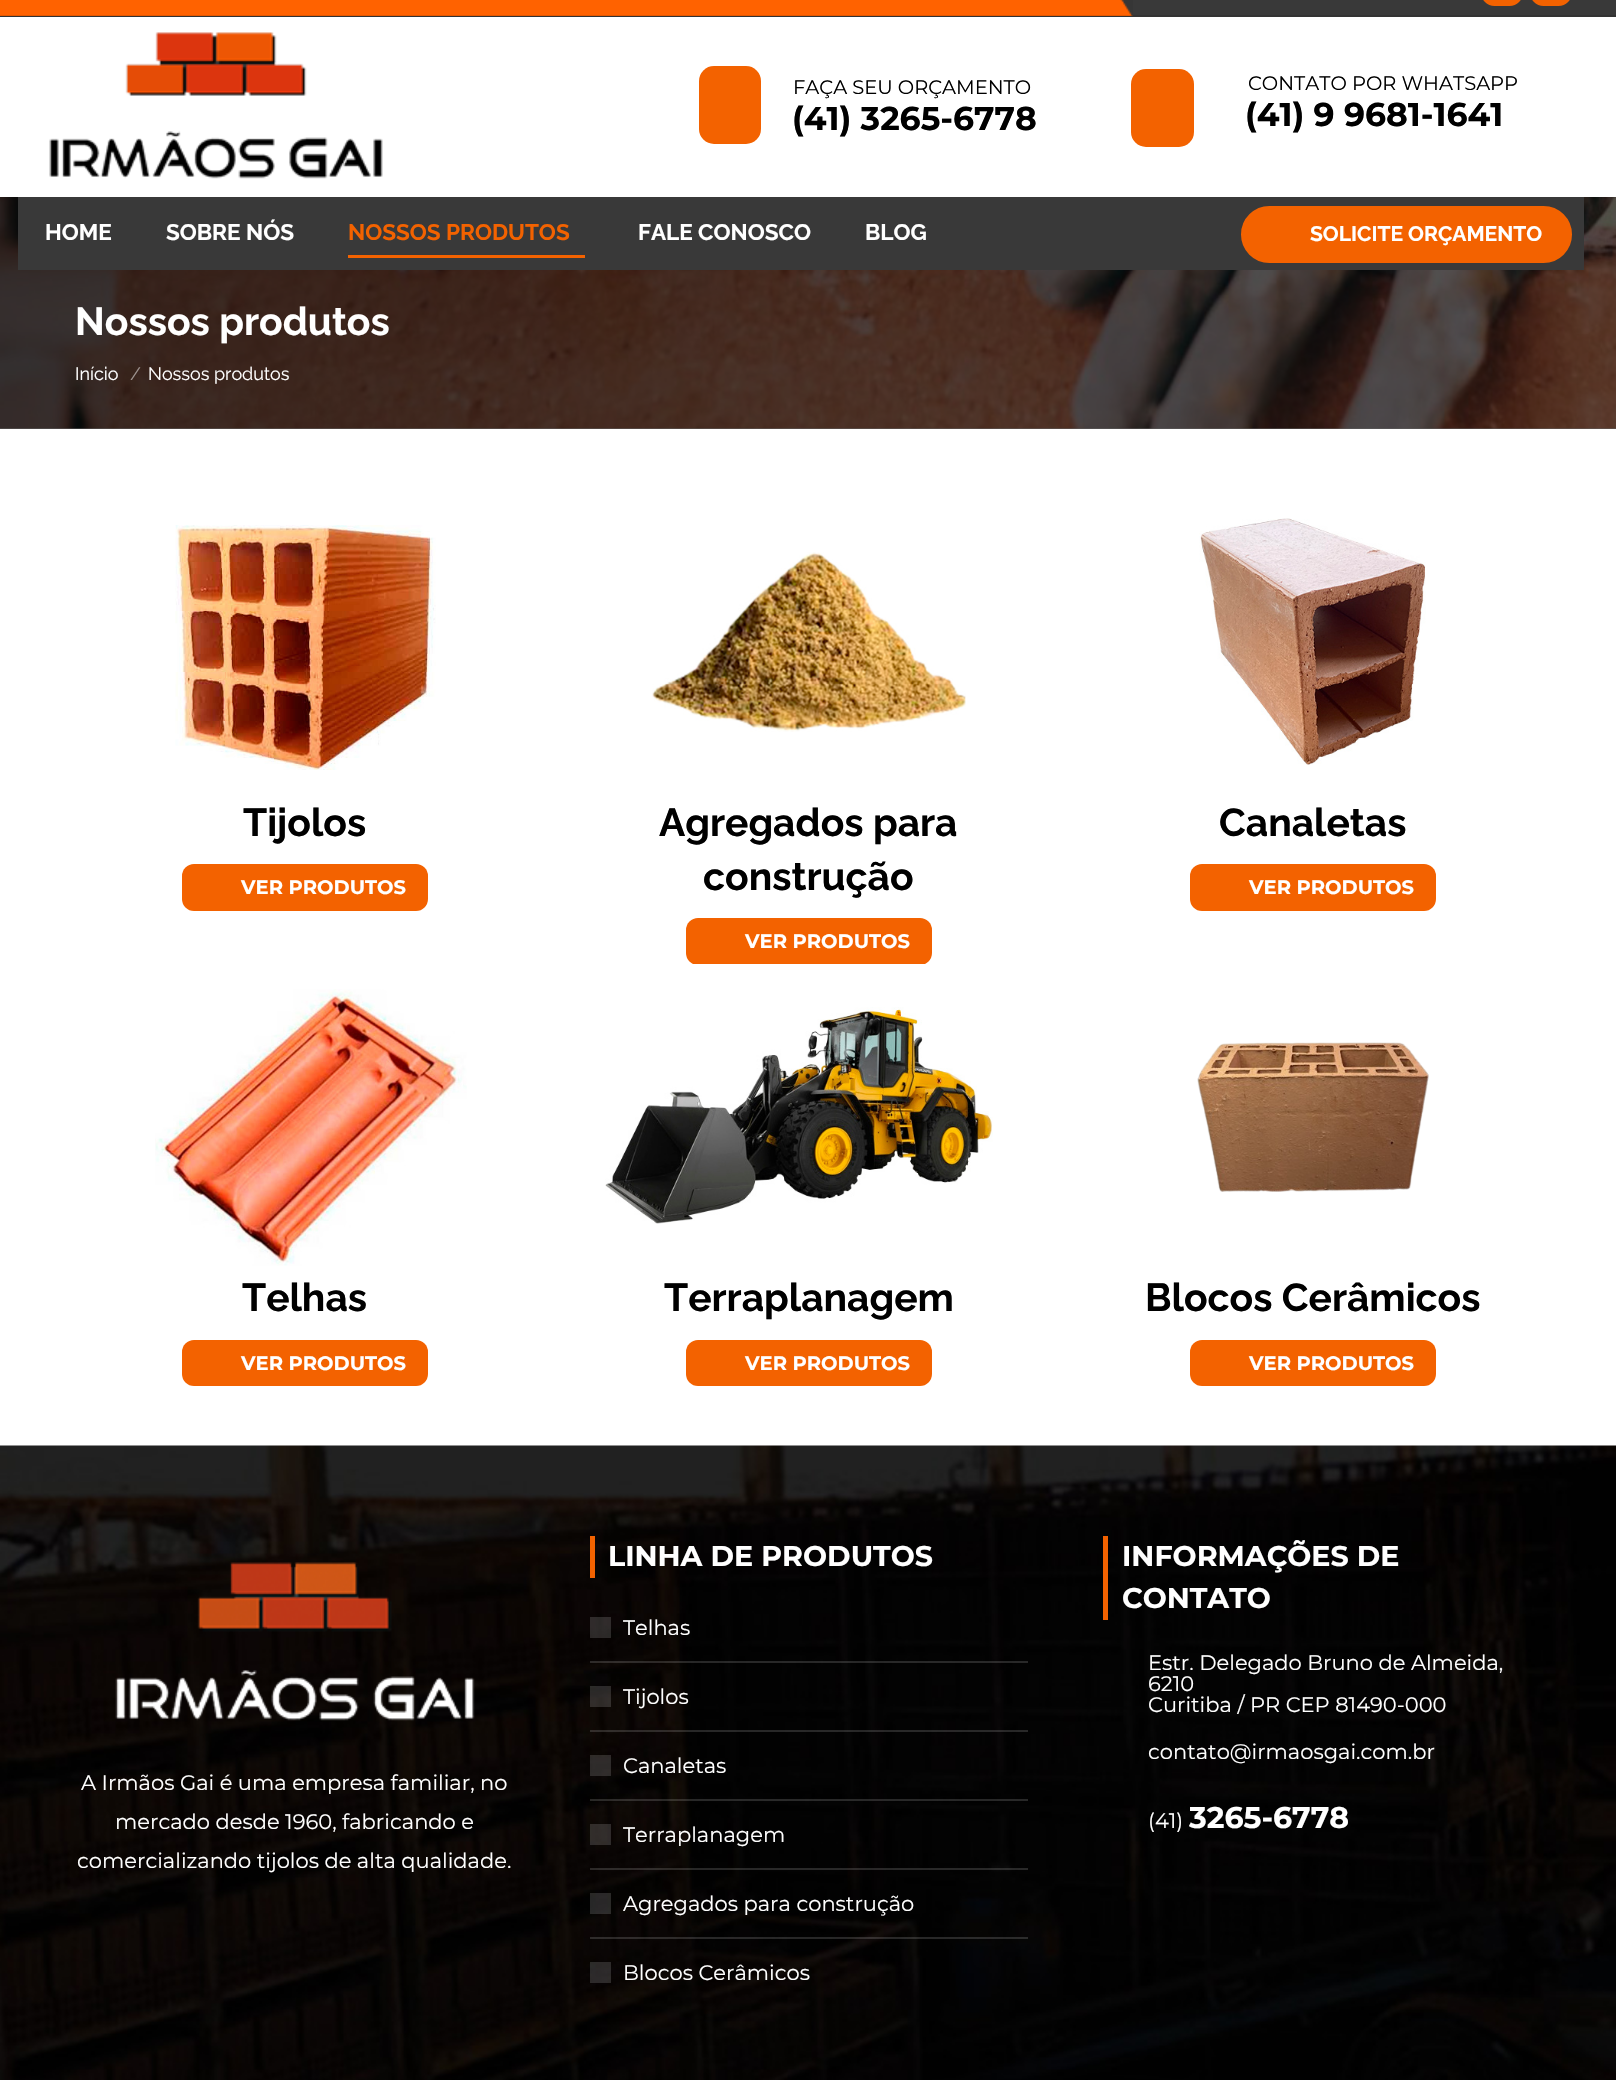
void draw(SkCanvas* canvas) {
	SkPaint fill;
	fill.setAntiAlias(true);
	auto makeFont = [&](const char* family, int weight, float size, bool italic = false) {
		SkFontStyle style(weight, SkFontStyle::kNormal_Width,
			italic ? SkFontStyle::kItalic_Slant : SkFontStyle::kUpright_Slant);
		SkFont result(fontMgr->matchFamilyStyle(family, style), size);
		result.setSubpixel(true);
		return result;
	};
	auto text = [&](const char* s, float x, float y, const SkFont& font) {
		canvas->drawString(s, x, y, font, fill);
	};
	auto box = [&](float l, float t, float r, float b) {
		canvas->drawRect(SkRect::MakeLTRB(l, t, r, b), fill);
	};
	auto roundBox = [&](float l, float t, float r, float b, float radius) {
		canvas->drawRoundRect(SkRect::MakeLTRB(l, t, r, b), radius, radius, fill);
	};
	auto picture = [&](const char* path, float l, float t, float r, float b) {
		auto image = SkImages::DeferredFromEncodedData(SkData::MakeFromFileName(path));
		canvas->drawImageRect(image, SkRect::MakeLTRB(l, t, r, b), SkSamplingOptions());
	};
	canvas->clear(0xFFFFFFFF);
	fill.setColor(0xFF5F5F5F);
	box(0, 428, 1616, 429);
	picture("image2.png", 0, 197, 1616, 429);
	fill.setColor(0x12000000);
	fill.setMaskFilter(SkMaskFilter::MakeBlur(kNormal_SkBlurStyle, 11));
	canvas->drawRect(SkRect::MakeLTRB(-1, -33, 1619, 198), fill);
	fill.setMaskFilter(nullptr);
	fill.setColor(0xFFFFFFFF);
	box(0, 17, 1616, 197);
	fill.setColor(0xFF393939);
	box(0, 0, 1616, 17);
	fill.setColor(0xFFF36200);
	roundBox(1481, -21, 1523, 6, 21);
	roundBox(1530, -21, 1572, 6, 21);
	picture("image0.png", 0, 0, 1133, 16);
	fill.setColor(0x1A000000);
	box(0, 15, 1616, 17);
	picture("image1.png", 49, 32, 383, 179);
	fill.setColor(0xFFF36200);
	roundBox(699, 66, 761, 144, 15);
	roundBox(1131, 69, 1194, 147, 15);
	fill.setColor(0xFF393939);
	box(18, 197, 1584, 270);
	fill.setColor(0xFFF36200);
	box(348, 255, 585, 258);
	canvas->drawRoundRect(SkRect::MakeLTRB(1242, 207, 1571, 262), 27.5f, 27.5f, fill);
	fill.setStyle(SkPaint::kStroke_Style);
	fill.setStrokeWidth(2);
	canvas->drawRoundRect(SkRect::MakeLTRB(1242, 207, 1571, 262), 27.5f, 27.5f, fill);
	picture("image3.png", 175, 525, 436, 770);
	fill.setStyle(SkPaint::kFill_Style);
	roundBox(182, 864, 428, 911, 12);
	picture("image4.png", 652, 552, 966, 732);
	roundBox(686, 918, 932, 965, 12);
	picture("image5.png", 1199, 518, 1426, 765);
	roundBox(1190, 864, 1436, 911, 12);
	picture("image6.png", 155, 989, 467, 1266);
	roundBox(182, 1340, 428, 1386, 12);
	picture("image7.png", 605, 964, 993, 1224);
	roundBox(686, 1340, 932, 1386, 12);
	picture("image8.png", 1197, 1042, 1429, 1192);
	roundBox(1190, 1340, 1436, 1386, 12);
	picture("image9.png", 0, 1445, 1616, 2080);
	picture("image10.png", 115, 1562, 475, 1721);
	box(590, 1536, 595, 1578);
	fill.setColor(0x26FFFFFF);
	box(590, 1617, 611, 1638);
	box(590, 1661, 1028, 1663);
	box(590, 1686, 611, 1707);
	box(590, 1730, 1028, 1732);
	box(590, 1755, 611, 1776);
	box(590, 1799, 1028, 1801);
	box(590, 1824, 611, 1845);
	box(590, 1868, 1028, 1870);
	box(590, 1893, 611, 1914);
	box(590, 1937, 1028, 1939);
	box(590, 1962, 611, 1983);
	fill.setColor(0xFFF36200);
	box(1103, 1536, 1108, 1620);
	auto font1 = makeFont("Montserrat", 400, 19.5f);
	fill.setColor(0xFF000000);
	text("FAÇA SEU ORÇAMENTO", 793, 94, font1);
	auto font2 = makeFont("Montserrat", 700, 33);
	text("(41) 3265-6778", 792, 130, font2);
	text("CONTATO POR WHATSAPP", 1248, 90, font1);
	text("(41) 9 9681-1641", 1245, 126, font2);
	auto font3 = makeFont("Raleway", 700, 22.5f);
	fill.setColor(0xFFFFFFFF);
	text("HOME", 45, 240, font3);
	text("SOBRE NÓS", 166, 240, font3);
	fill.setColor(0xFFF36200);
	text("NOSSOS PRODUTOS", 348, 240, font3);
	fill.setColor(0xFFFFFFFF);
	text("FALE CONOSCO", 638, 240, font3);
	text("BLOG", 865, 240, font3);
	auto font4 = makeFont("Raleway", 700, 21);
	text("SOLICITE ORÇAMENTO", 1310, 241, font4);
	auto font5 = makeFont("Raleway", 700, 39);
	text("Nossos produtos", 75, 335, font5);
	auto font6 = makeFont("Raleway", 400, 18);
	text("Início", 75, 380, font6);
	fill.setColor(0xFF9C928E);
	text("/", 130, 380, font6);
	fill.setColor(0xFFFFFFFF);
	text("Nossos produtos", 148, 380, font6);
	fill.setColor(0xFF000000);
	text("Tijolos", 243, 836, font5);
	auto font7 = makeFont("Montserrat", 700, 19.5f);
	fill.setColor(0xFFFFFFFF);
	text("VER PRODUTOS", 241, 894, font7);
	fill.setColor(0xFF000000);
	text("Agregados para", 659, 836, font5);
	text("construção", 703, 890, font5);
	fill.setColor(0xFFFFFFFF);
	text("VER PRODUTOS", 745, 948, font7);
	fill.setColor(0xFF000000);
	text("Canaletas", 1219, 836, font5);
	fill.setColor(0xFFFFFFFF);
	text("VER PRODUTOS", 1249, 894, font7);
	fill.setColor(0xFF000000);
	text("Telhas", 242, 1311, font5);
	fill.setColor(0xFFFFFFFF);
	text("VER PRODUTOS", 241, 1370, font7);
	fill.setColor(0xFF000000);
	text("Terraplanagem", 664, 1311, font5);
	fill.setColor(0xFFFFFFFF);
	text("VER PRODUTOS", 745, 1370, font7);
	fill.setColor(0xFF000000);
	text("Blocos Cerâmicos", 1145, 1311, font5);
	fill.setColor(0xFFFFFFFF);
	text("VER PRODUTOS", 1249, 1370, font7);
	auto font8 = makeFont("Montserrat", 400, 21);
	text("A Irmãos Gai é uma empresa familiar, no", 81, 1790, font8);
	text("mercado desde 1960, fabricando e", 115, 1829, font8);
	text("comercializando tijolos de alta qualidade.", 77, 1868, font8);
	auto font9 = makeFont("Montserrat", 700, 28.5f);
	text("LINHA DE PRODUTOS", 608, 1566, font9);
	text("Telhas", 623, 1635, font8);
	text("Tijolos", 623, 1704, font8);
	text("Canaletas", 623, 1773, font8);
	text("Terraplanagem", 623, 1842, font8);
	text("Agregados para construção", 623, 1911, font8);
	text("Blocos Cerâmicos", 623, 1980, font8);
	text("INFORMAÇÕES DE", 1122, 1566, font9);
	text("CONTATO", 1122, 1608, font9);
	text("Estr. Delegado Bruno de Almeida,", 1148, 1670, font8);
	text("6210", 1148, 1691, font8);
	text("Curitiba / PR CEP 81490-000", 1148, 1712, font8);
	text("contato@irmaosgai.com.br", 1148, 1759, font8);
	text("(41)", 1148, 1828, font8);
	auto font10 = makeFont("Montserrat", 700, 30);
	text("3265-6778", 1189, 1828, font10);
}
